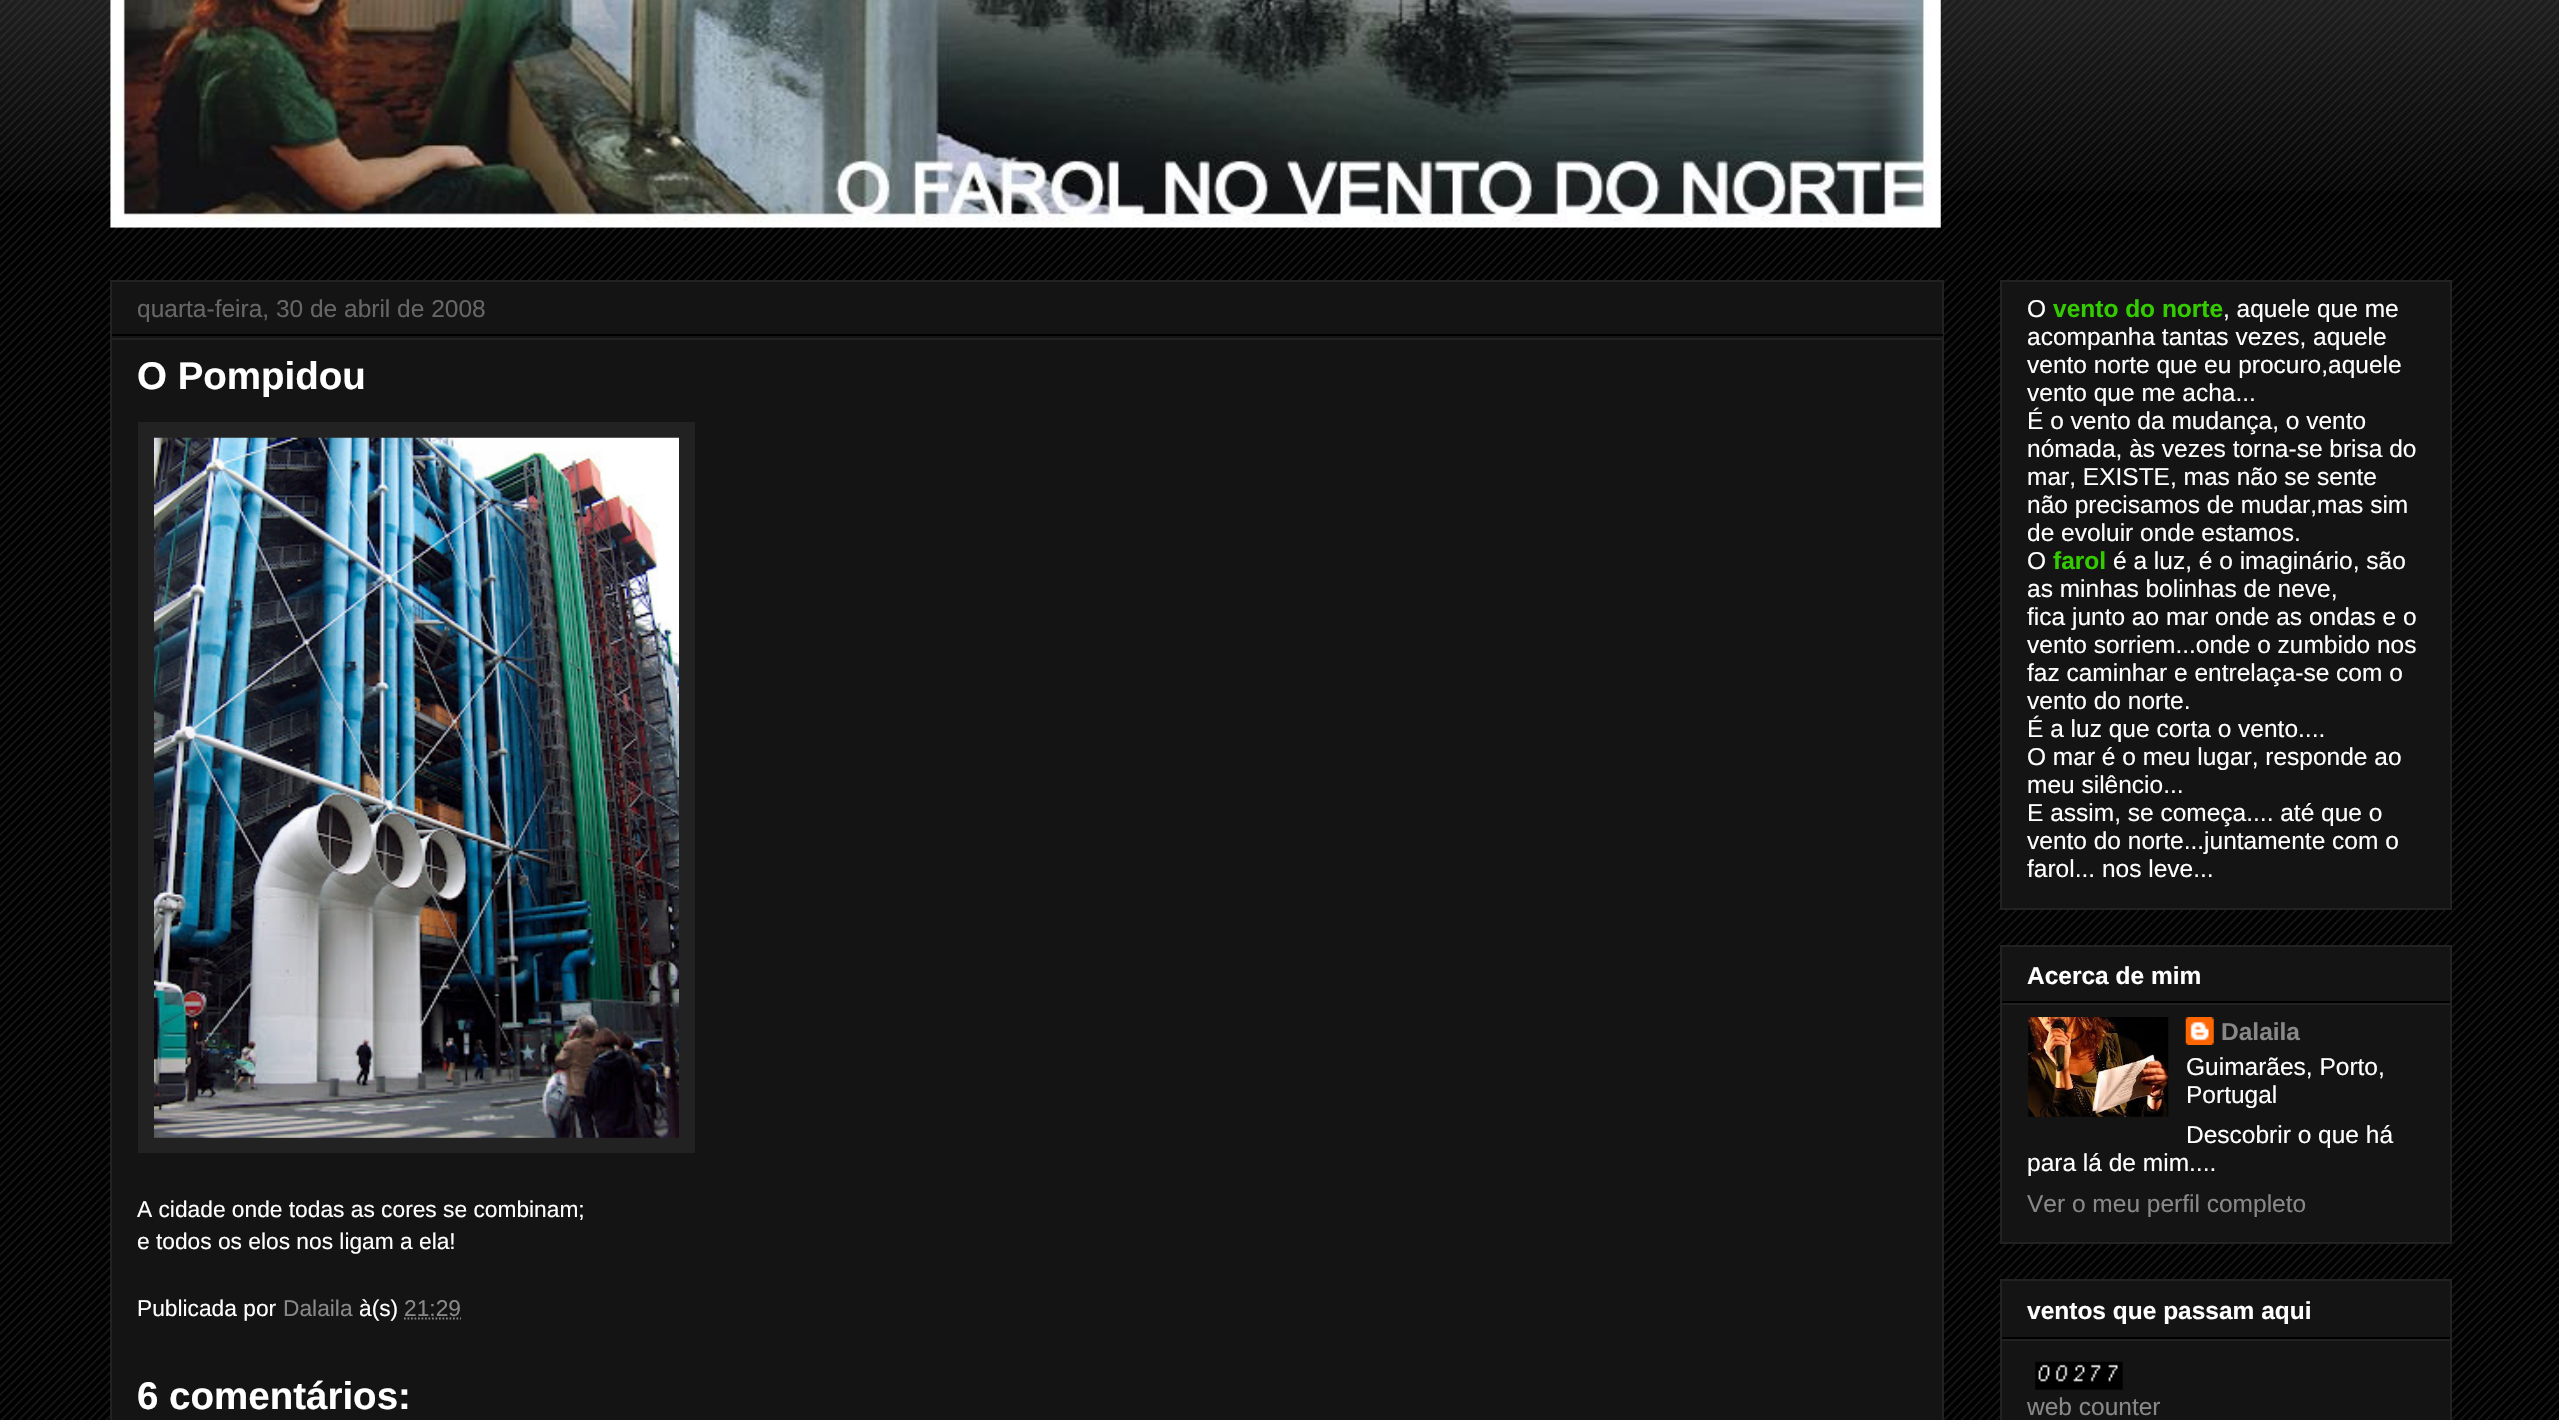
void draw(SkCanvas* canvas) {
	SkPaint fill;
	fill.setAntiAlias(true);
	auto makeFont = [&](const char* family, int weight, float size, bool italic = false) {
		SkFontStyle style(weight, SkFontStyle::kNormal_Width,
			italic ? SkFontStyle::kItalic_Slant : SkFontStyle::kUpright_Slant);
		SkFont result(fontMgr->matchFamilyStyle(family, style), size);
		result.setSubpixel(true);
		return result;
	};
	auto text = [&](const char* s, float x, float y, const SkFont& font) {
		canvas->drawString(s, x, y, font, fill);
	};
	auto box = [&](float l, float t, float r, float b) {
		canvas->drawRect(SkRect::MakeLTRB(l, t, r, b), fill);
	};
	auto picture = [&](const char* path, float l, float t, float r, float b) {
		auto image = SkImages::DeferredFromEncodedData(SkData::MakeFromFileName(path));
		canvas->drawImageRect(image, SkRect::MakeLTRB(l, t, r, b), SkSamplingOptions());
	};
	canvas->clear(0xFF000000);
	picture("image0.png", 0, 0, 2559, 1420);
	picture("image1.png", 0, 0, 2559, 191);
	picture("image2.png", 110, 0, 1941, 228);
	fill.setColor(0xFF141414);
	canvas->drawRect(SkRect::MakeLTRB(111, 281, 1943, 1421), fill);
	fill.setStyle(SkPaint::kStroke_Style);
	fill.setStrokeWidth(2);
	fill.setColor(0xFF222222);
	canvas->drawRect(SkRect::MakeLTRB(111, 281, 1943, 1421), fill);
	fill.setStyle(SkPaint::kFill_Style);
	fill.setColor(0xFF000000);
	box(112, 334, 1943, 336);
	fill.setColor(0xFF222222);
	box(112, 338, 1943, 340);
	box(138, 422, 695, 1153);
	picture("image3.png", 154, 437, 679, 1138);
	fill.setStyle(SkPaint::kStroke_Style);
	fill.setStrokeWidth(1.8f);
	fill.setColor(0xFF888888);
	fill.setPathEffect(SkDashPathEffect::Make({{1.75f, 1.75f}}, 0));
	canvas->drawPath(SkPathBuilder().moveTo(404, 1318.5f).lineTo(461, 1318.5f).detach(), fill);
	fill.setPathEffect(nullptr);
	fill.setStyle(SkPaint::kFill_Style);
	fill.setColor(0xFF141414);
	canvas->drawRect(SkRect::MakeLTRB(2001, 281, 2451, 909), fill);
	fill.setStyle(SkPaint::kStroke_Style);
	fill.setStrokeWidth(2);
	fill.setColor(0xFF222222);
	canvas->drawRect(SkRect::MakeLTRB(2001, 281, 2451, 909), fill);
	fill.setStyle(SkPaint::kFill_Style);
	fill.setColor(0xFF141414);
	canvas->drawRect(SkRect::MakeLTRB(2001, 946, 2451, 1243), fill);
	fill.setStyle(SkPaint::kStroke_Style);
	fill.setColor(0xFF222222);
	canvas->drawRect(SkRect::MakeLTRB(2001, 946, 2451, 1243), fill);
	fill.setStyle(SkPaint::kFill_Style);
	fill.setColor(0xFF000000);
	box(2002, 1001, 2450, 1003);
	fill.setColor(0xFF222222);
	box(2002, 1003, 2450, 1005);
	picture("image4.png", 2028, 1017, 2169, 1117);
	picture("image5.png", 2185, 1017, 2214, 1045);
	fill.setColor(0xFF141414);
	canvas->drawRect(SkRect::MakeLTRB(2001, 1280, 2451, 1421), fill);
	fill.setStyle(SkPaint::kStroke_Style);
	fill.setColor(0xFF222222);
	canvas->drawRect(SkRect::MakeLTRB(2001, 1280, 2451, 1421), fill);
	fill.setStyle(SkPaint::kFill_Style);
	fill.setColor(0xFF000000);
	box(2002, 1337, 2450, 1339);
	fill.setColor(0xFF222222);
	box(2002, 1339, 2450, 1341);
	picture("image6.png", 2035, 1361, 2123, 1390);
	auto font1 = makeFont("Liberation Sans", 400, 24.5f);
	fill.setColor(0xFF666666);
	text("quarta-feira, 30 de abril de 2008", 137, 317, font1);
	auto font2 = makeFont("Liberation Sans", 700, 38.5f);
	fill.setColor(0xFFFFFFFF);
	text("O Pompidou", 137, 389, font2);
	auto font3 = makeFont("Liberation Sans", 400, 22.75f);
	text("A cidade onde todas as cores se combinam;", 137, 1217, font3);
	text("e todos os elos nos ligam a ela!", 137, 1249, font3);
	text("Publicada por", 137, 1316, font3);
	fill.setColor(0xFF888888);
	text("Dalaila", 283, 1316, font3);
	fill.setColor(0xFFFFFFFF);
	text("à(s)", 359, 1316, font3);
	fill.setColor(0xFF888888);
	text("21:29", 404, 1316, font3);
	fill.setColor(0xFFFFFFFF);
	text("6 comentários:", 137, 1409, font2);
	text("O", 2027, 317, font1);
	auto font4 = makeFont("Liberation Sans", 700, 24.5f);
	fill.setColor(0xFF33CC00);
	text("vento do norte", 2053, 317, font4);
	fill.setColor(0xFFFFFFFF);
	text(", aquele que me", 2223, 317, font1);
	text("acompanha tantas vezes, aquele", 2027, 345, font1);
	text("vento norte que eu procuro,aquele", 2027, 373, font1);
	text("vento que me acha...", 2027, 401, font1);
	text("É o vento da mudança, o vento", 2027, 429, font1);
	text("nómada, às vezes torna-se brisa do", 2027, 457, font1);
	text("mar, EXISTE, mas não se sente", 2027, 485, font1);
	text("não precisamos de mudar,mas sim", 2027, 513, font1);
	text("de evoluir onde estamos.", 2027, 541, font1);
	text("O", 2027, 569, font1);
	fill.setColor(0xFF33CC00);
	text("farol", 2053, 569, font4);
	fill.setColor(0xFFFFFFFF);
	text("é a luz, é o imaginário, são", 2113, 569, font1);
	text("as minhas bolinhas de neve,", 2027, 597, font1);
	text("fica junto ao mar onde as ondas e o", 2027, 625, font1);
	text("vento sorriem...onde o zumbido nos", 2027, 653, font1);
	text("faz caminhar e entrelaça-se com o", 2027, 681, font1);
	text("vento do norte.", 2027, 709, font1);
	text("É a luz que corta o vento....", 2027, 737, font1);
	text("O mar é o meu lugar, responde ao", 2027, 765, font1);
	text("meu silêncio...", 2027, 793, font1);
	text("E assim, se começa.... até que o", 2027, 821, font1);
	text("vento do norte...juntamente com o", 2027, 849, font1);
	text("farol... nos leve...", 2027, 877, font1);
	text("Acerca de mim", 2027, 984, font4);
	fill.setColor(0xFF888888);
	text("Dalaila", 2221, 1040, font4);
	fill.setColor(0xFFFFFFFF);
	text("Guimarães, Porto,", 2186, 1075, font1);
	text("Portugal", 2186, 1103, font1);
	text("Descobrir o que há", 2186, 1143, font1);
	text("para lá de mim....", 2027, 1171, font1);
	fill.setColor(0xFF888888);
	text("Ver o meu perfil completo", 2027, 1212, font1);
	fill.setColor(0xFFFFFFFF);
	text("ventos que passam aqui", 2027, 1319, font4);
	fill.setColor(0xFF888888);
	text("web counter", 2027, 1415, font1);
}
